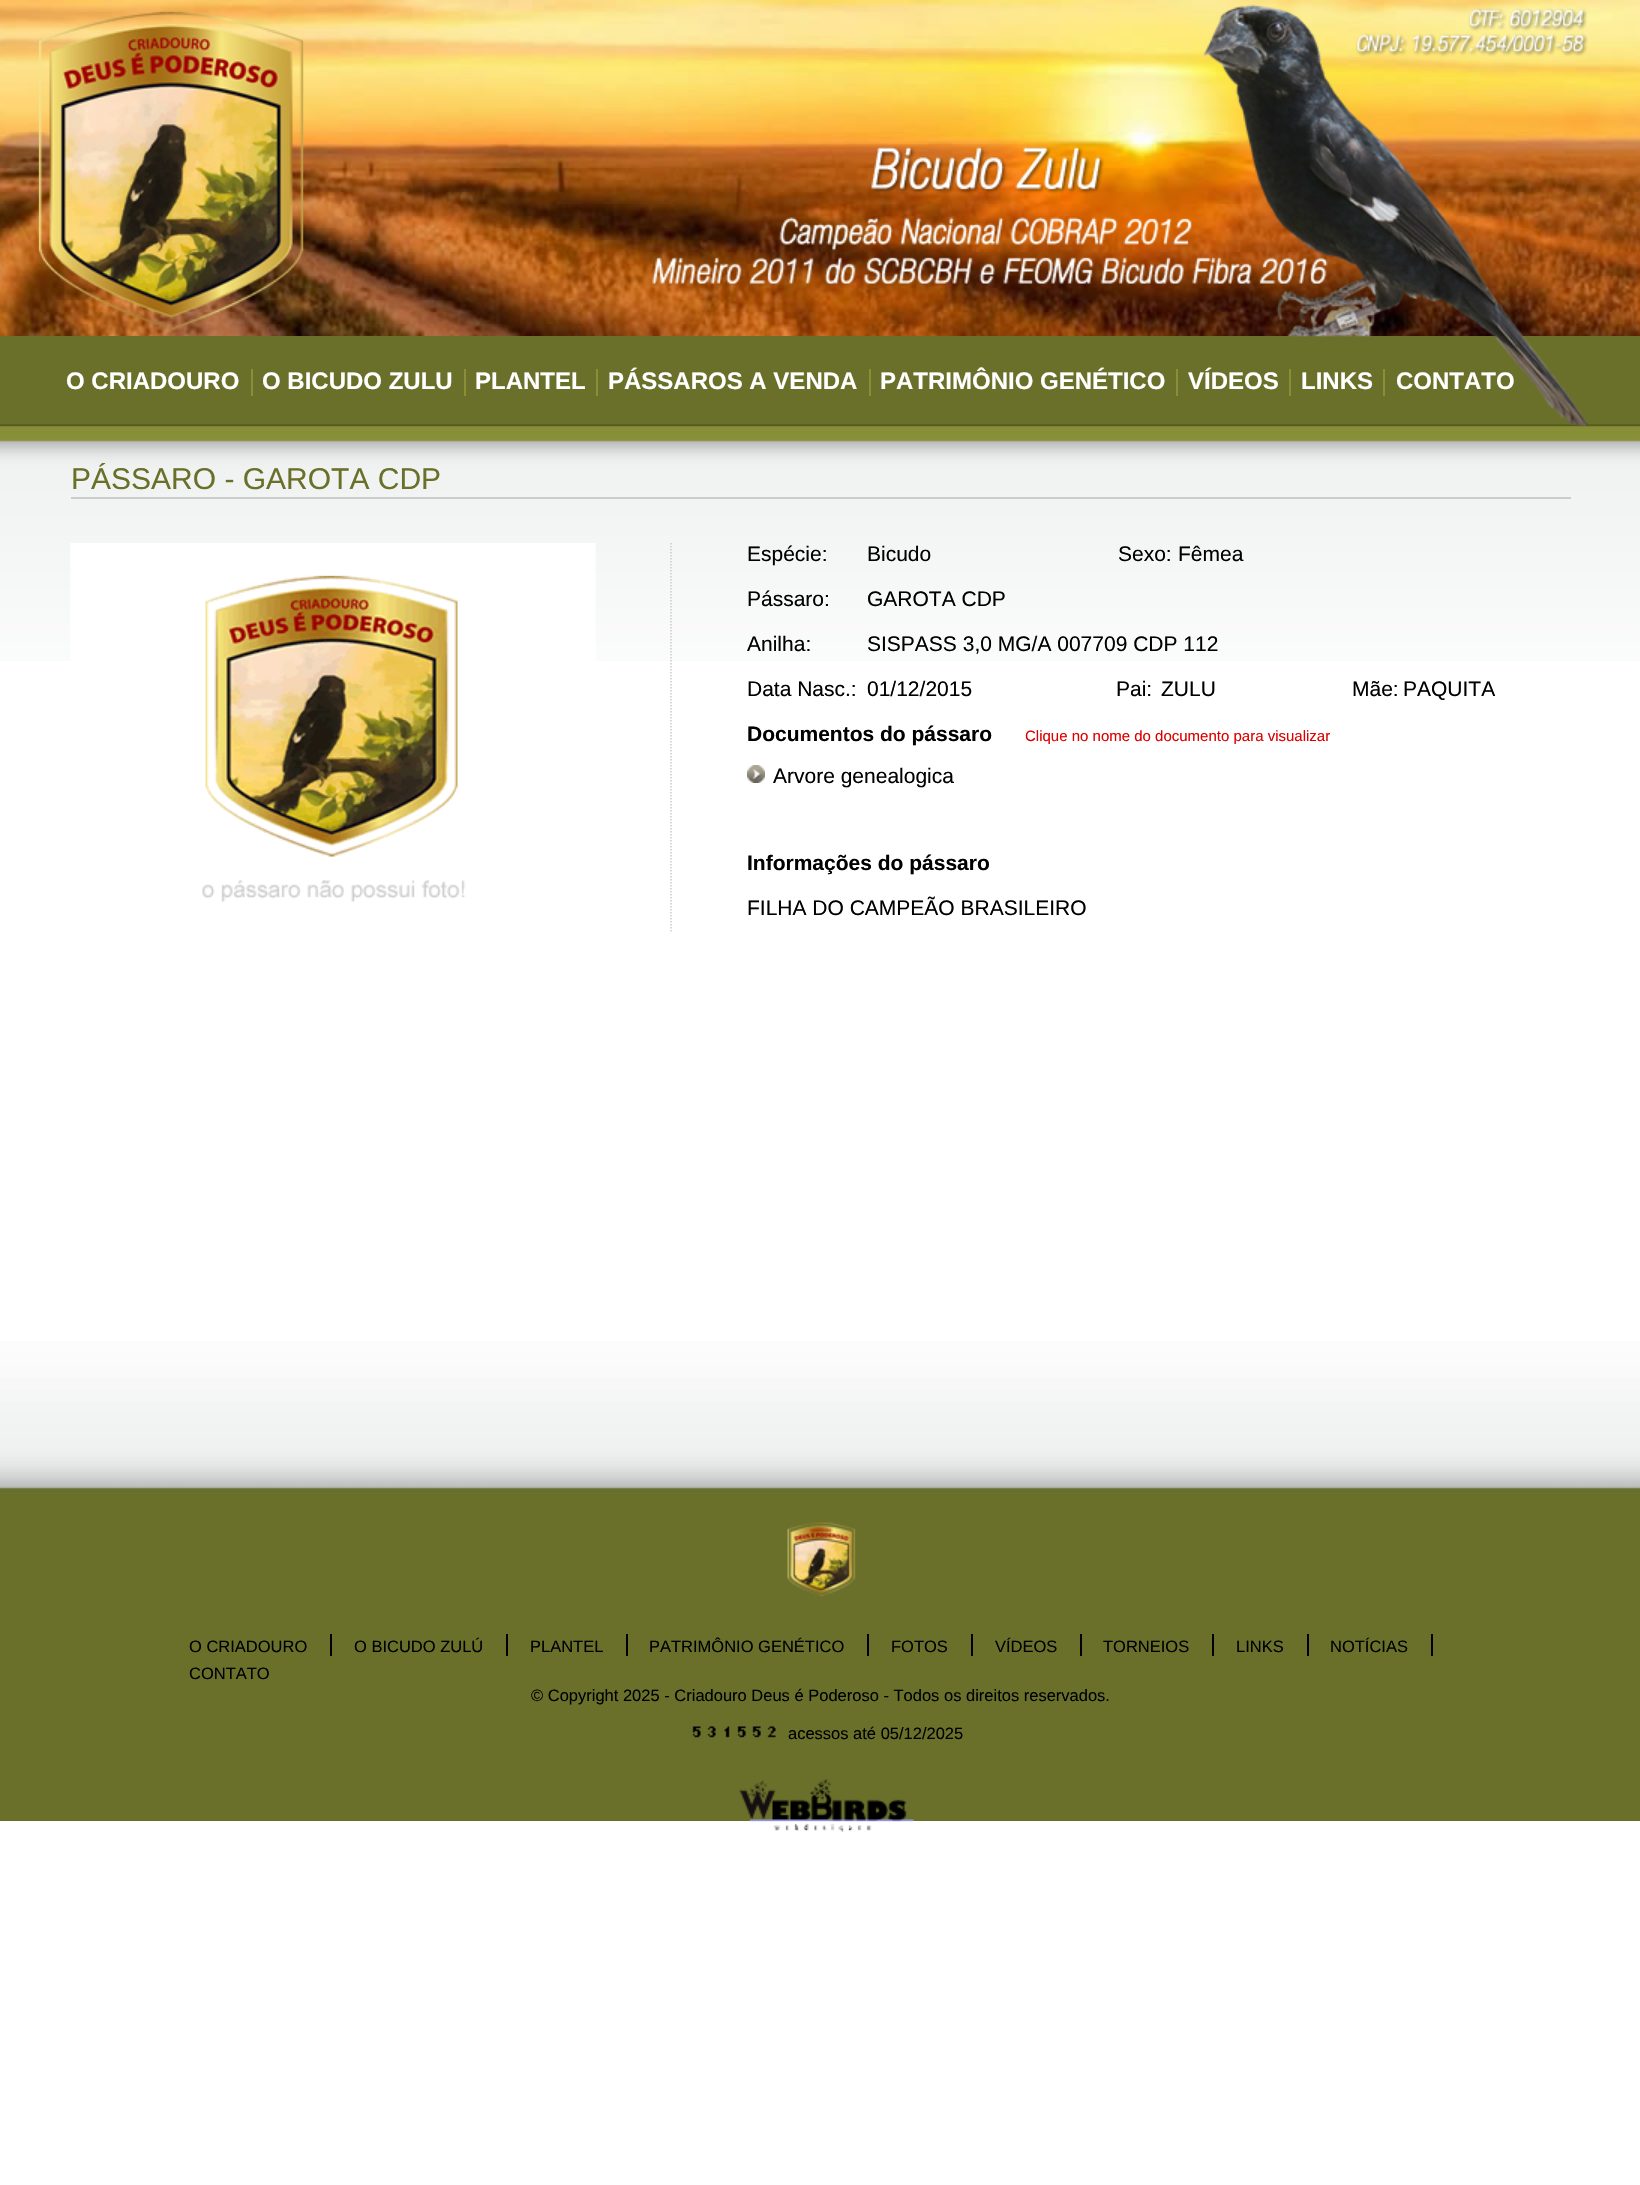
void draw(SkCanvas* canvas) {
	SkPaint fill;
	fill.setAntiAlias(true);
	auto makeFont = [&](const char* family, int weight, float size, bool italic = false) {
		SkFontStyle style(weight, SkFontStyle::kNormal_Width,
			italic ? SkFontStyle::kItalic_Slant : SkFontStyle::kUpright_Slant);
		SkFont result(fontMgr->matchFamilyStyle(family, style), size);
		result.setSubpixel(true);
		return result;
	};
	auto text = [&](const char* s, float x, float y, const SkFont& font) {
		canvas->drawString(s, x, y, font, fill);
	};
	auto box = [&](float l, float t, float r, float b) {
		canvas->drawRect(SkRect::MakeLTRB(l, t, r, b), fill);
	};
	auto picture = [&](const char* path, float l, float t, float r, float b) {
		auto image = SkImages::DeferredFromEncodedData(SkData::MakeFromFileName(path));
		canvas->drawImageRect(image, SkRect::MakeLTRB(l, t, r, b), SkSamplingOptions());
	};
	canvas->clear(0xFFFFFFFF);
	picture("image0.png", 0, 336, 1640, 661);
	picture("image1.png", 0, 0, 1640, 336);
	picture("image2.png", 38, 11, 304, 331);
	picture("image3.png", 652, 4, 1588, 426);
	fill.setColor(0xFF898F36);
	box(251, 369, 253, 396);
	box(464, 369, 466, 396);
	box(596, 369, 598, 396);
	box(869, 369, 871, 396);
	box(1176, 369, 1178, 396);
	box(1289, 369, 1291, 396);
	box(1383, 369, 1385, 396);
	fill.setColor(0xFFCCCCCC);
	box(71, 497, 1571, 499);
	picture("image4.png", 70, 543, 596, 902);
	fill.setStyle(SkPaint::kStroke_Style);
	fill.setStrokeWidth(1.5f);
	fill.setPathEffect(SkDashPathEffect::Make({{1.5f, 1.5f}}, 0));
	canvas->drawPath(SkPathBuilder().moveTo(671, 543).lineTo(671, 933).detach(), fill);
	fill.setPathEffect(nullptr);
	picture("image5.png", 747, 765, 765, 783);
	fill.setStyle(SkPaint::kFill_Style);
	fill.setColor(0xFF6A702A);
	box(0, 1495, 1640, 1821);
	picture("image6.png", 0, 1341, 1640, 1495);
	picture("image7.png", 787, 1522, 856, 1597);
	fill.setColor(0xFF000000);
	box(330, 1634, 332, 1656);
	box(506, 1634, 508, 1656);
	box(626, 1634, 628, 1656);
	box(867, 1634, 869, 1656);
	box(971, 1634, 973, 1656);
	box(1080, 1634, 1082, 1656);
	box(1212, 1634, 1214, 1656);
	box(1307, 1634, 1309, 1656);
	box(1431, 1634, 1433, 1656);
	picture("image8.png", 692, 1726, 701, 1738);
	picture("image9.png", 707, 1726, 716, 1738);
	picture("image10.png", 724, 1726, 730, 1738);
	picture("image11.png", 737, 1726, 746, 1738);
	picture("image11.png", 752, 1726, 761, 1738);
	picture("image12.png", 767, 1726, 776, 1738);
	picture("image13.png", 739, 1779, 914, 1832);
	auto font1 = makeFont("Liberation Sans", 700, 24);
	fill.setColor(0xFFFFFFFF);
	text("O CRIADOURO", 66, 389, font1);
	text("O BICUDO ZULU", 262, 389, font1);
	text("PLANTEL", 475, 389, font1);
	text("PÁSSAROS A VENDA", 608, 389, font1);
	text("PATRIMÔNIO GENÉTICO", 880, 389, font1);
	text("VÍDEOS", 1188, 389, font1);
	text("LINKS", 1301, 389, font1);
	text("CONTATO", 1396, 389, font1);
	auto font2 = makeFont("Liberation Sans", 400, 30);
	fill.setColor(0xFF6A702A);
	text("PÁSSARO - GAROTA CDP", 71, 489, font2);
	auto font3 = makeFont("Liberation Sans", 400, 21);
	fill.setColor(0xFF000000);
	text("Espécie:", 747, 561, font3);
	text("Bicudo", 867, 561, font3);
	text("Sexo:", 1118, 561, font3);
	text("Fêmea", 1178, 561, font3);
	text("Pássaro:", 747, 606, font3);
	text("GAROTA CDP", 867, 606, font3);
	text("Anilha:", 747, 651, font3);
	text("SISPASS 3,0 MG/A 007709 CDP 112", 867, 651, font3);
	text("Data Nasc.:", 747, 696, font3);
	text("01/12/2015", 867, 696, font3);
	text("Pai:", 1116, 696, font3);
	text("ZULU", 1161, 696, font3);
	text("Mãe:", 1352, 696, font3);
	text("PAQUITA", 1403, 696, font3);
	auto font4 = makeFont("Liberation Sans", 700, 21);
	text("Documentos do pássaro", 747, 741, font4);
	auto font5 = makeFont("Liberation Sans", 400, 15);
	fill.setColor(0xFFDD0000);
	text("Clique no nome do documento para visualizar", 1025, 741, font5);
	fill.setColor(0xFF000000);
	text("Arvore genealogica", 773, 783, font3);
	text("Informações do pássaro", 747, 870, font4);
	text("FILHA DO CAMPEÃO BRASILEIRO", 747, 915, font3);
	auto font6 = makeFont("Liberation Sans", 400, 16.5f);
	text("O CRIADOURO", 189, 1652, font6);
	text("O BICUDO ZULÚ", 354, 1652, font6);
	text("PLANTEL", 530, 1652, font6);
	text("PATRIMÔNIO GENÉTICO", 649, 1652, font6);
	text("FOTOS", 891, 1652, font6);
	text("VÍDEOS", 995, 1652, font6);
	text("TORNEIOS", 1103, 1652, font6);
	text("LINKS", 1236, 1652, font6);
	text("NOTÍCIAS", 1330, 1652, font6);
	text("CONTATO", 189, 1679, font6);
	text("© Copyright 2025 - Criadouro Deus é Poderoso - Todos os direitos reservados.", 531, 1701, font6);
	text("acessos até 05/12/2025", 788, 1739, font6);
}
